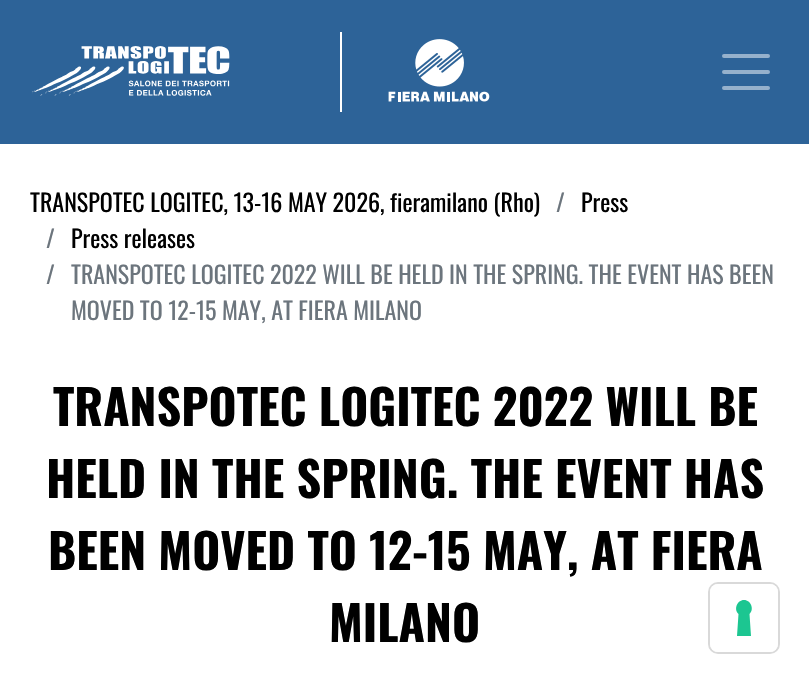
void draw(SkCanvas* canvas) {
	SkPaint fill;
	fill.setAntiAlias(true);
	auto makeFont = [&](const char* family, int weight, float size, bool italic = false) {
		SkFontStyle style(weight, SkFontStyle::kNormal_Width,
			italic ? SkFontStyle::kItalic_Slant : SkFontStyle::kUpright_Slant);
		SkFont result(fontMgr->matchFamilyStyle(family, style), size);
		result.setSubpixel(true);
		return result;
	};
	auto text = [&](const char* s, float x, float y, const SkFont& font) {
		canvas->drawString(s, x, y, font, fill);
	};
	auto box = [&](float l, float t, float r, float b) {
		canvas->drawRect(SkRect::MakeLTRB(l, t, r, b), fill);
	};
	auto roundBox = [&](float l, float t, float r, float b, float radius) {
		canvas->drawRoundRect(SkRect::MakeLTRB(l, t, r, b), radius, radius, fill);
	};
	auto picture = [&](const char* path, float l, float t, float r, float b) {
		auto image = SkImages::DeferredFromEncodedData(SkData::MakeFromFileName(path));
		canvas->drawImageRect(image, SkRect::MakeLTRB(l, t, r, b), SkSamplingOptions());
	};
	canvas->clear(0xFFFFFFFF);
	fill.setColor(0xFF2D6398);
	box(0, 0, 809, 144);
	picture("image0.png", 32, 46, 230, 96);
	fill.setColor(0xFFFFFFFF);
	box(340, 32, 342, 112);
	picture("image1.png", 388, 39, 490, 102);
	fill.setStyle(SkPaint::kStroke_Style);
	fill.setStrokeWidth(4);
	fill.setStrokeCap(SkPaint::kRound_Cap);
	fill.setColor(0xFF96B1CC);
	canvas->drawPath(SkPathBuilder().moveTo(724, 56).lineTo(768, 56).moveTo(724, 72).lineTo(768, 72).moveTo(724, 88).lineTo(768, 88).detach(), fill);
	fill.setStrokeWidth(2);
	fill.setStrokeCap(SkPaint::kButt_Cap);
	fill.setColor(0xFFD9D9D9);
	canvas->drawRoundRect(SkRect::MakeLTRB(709, 583, 779, 653), 9, 9, fill);
	fill.setStyle(SkPaint::kFill_Style);
	fill.setColor(0xFFFFFFFF);
	roundBox(710, 584, 778, 652, 8);
	fill.setColor(0xFF1CC691);
	canvas->drawPath(SkPathBuilder(SkPathFillType::kEvenOdd).moveTo(744, 600).cubicTo(751, 600, 754.5f, 609.5f, 749.5f, 614).lineTo(751, 636).lineTo(737, 636).lineTo(738.5f, 614).cubicTo(733.5f, 609.5f, 737, 600, 744, 600).close().detach(), fill);
	auto font1 = makeFont("Oswald", 400, 24);
	fill.setColor(0xFF000000);
	text("TRANSPOTEC LOGITEC, 13-16 MAY 2026, fieramilano (Rho)", 30, 212, font1);
	fill.setColor(0xFF6C757D);
	text("/", 556, 212, font1);
	fill.setColor(0xFF000000);
	text("Press", 581, 212, font1);
	fill.setColor(0xFF6C757D);
	text("/", 46, 248, font1);
	fill.setColor(0xFF000000);
	text("Press releases", 71, 248, font1);
	fill.setColor(0xFF6C757D);
	text("/", 46, 284, font1);
	text("TRANSPOTEC LOGITEC 2022 WILL BE HELD IN THE SPRING. THE EVENT HAS BEEN", 71, 284, font1);
	text("MOVED TO 12-15 MAY, AT FIERA MILANO", 71, 320, font1);
	auto font2 = makeFont("Oswald", 700, 48);
	fill.setColor(0xFF000000);
	text("TRANSPOTEC LOGITEC 2022 WILL BE", 53, 426, font2);
	text("HELD IN THE SPRING. THE EVENT HAS", 46, 498, font2);
	text("BEEN MOVED TO 12-15 MAY, AT FIERA", 48, 570, font2);
	text("MILANO", 329, 642, font2);
}
